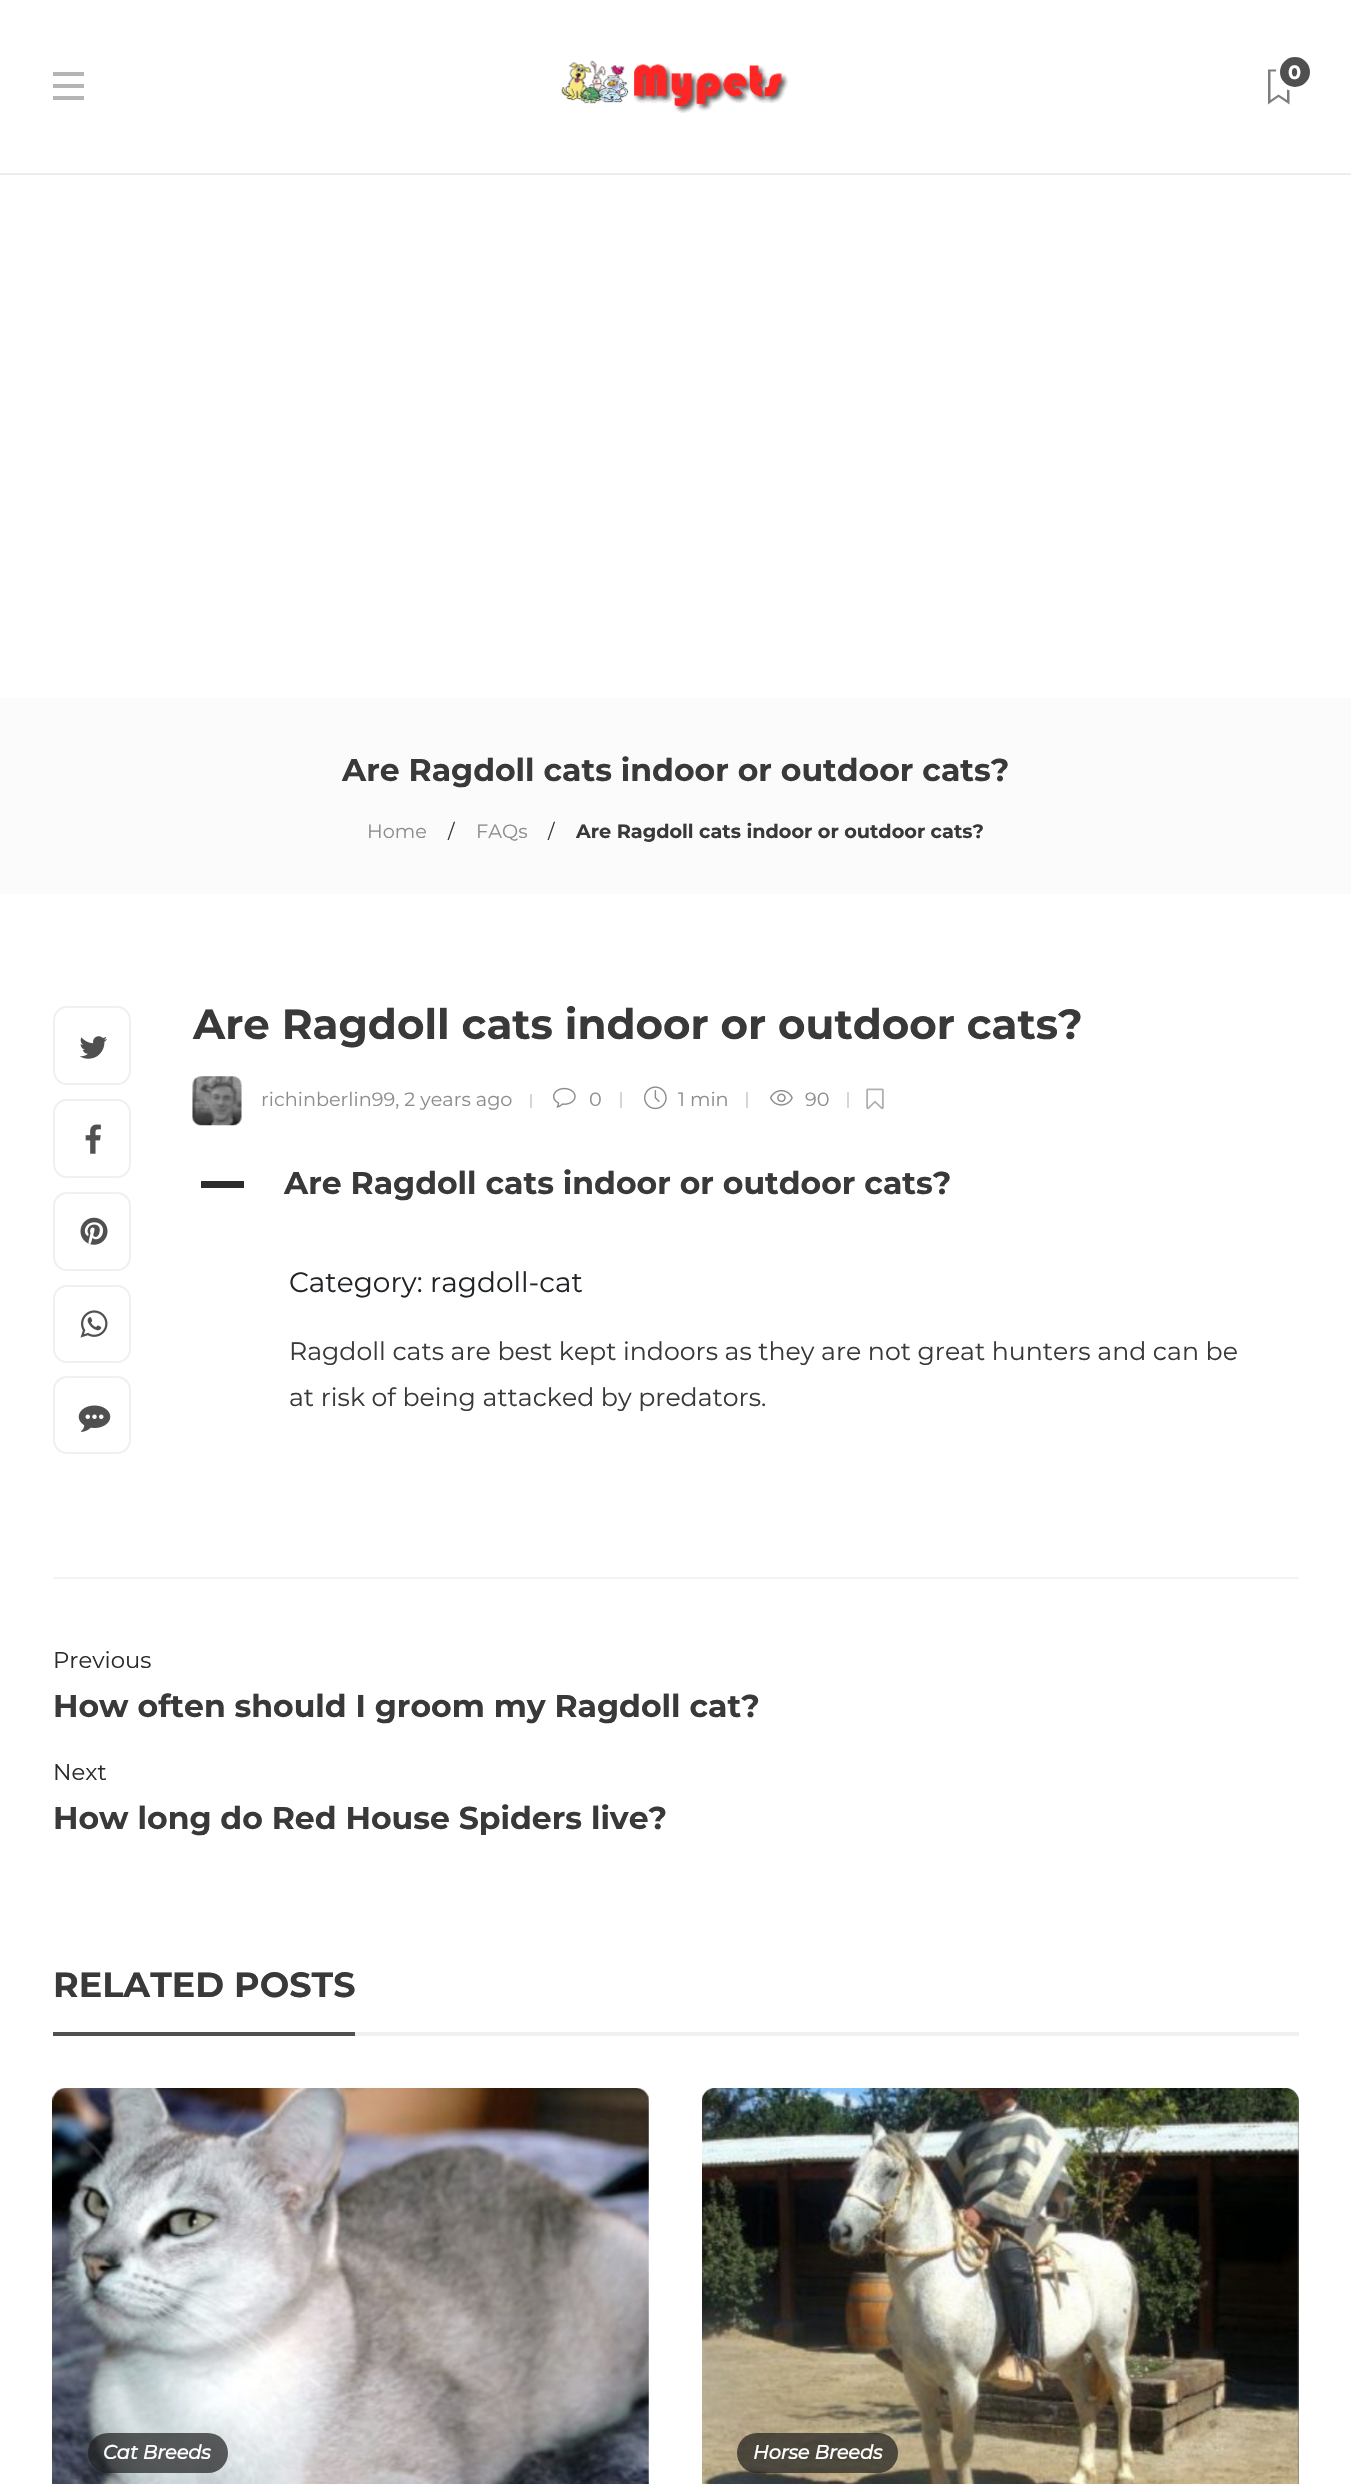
void draw(SkCanvas* canvas) {
	SkPaint fill;
	fill.setAntiAlias(true);
	auto makeFont = [&](const char* family, int weight, float size, bool italic = false) {
		SkFontStyle style(weight, SkFontStyle::kNormal_Width,
			italic ? SkFontStyle::kItalic_Slant : SkFontStyle::kUpright_Slant);
		SkFont result(fontMgr->matchFamilyStyle(family, style), size);
		result.setSubpixel(true);
		return result;
	};
	auto text = [&](const char* s, float x, float y, const SkFont& font) {
		canvas->drawString(s, x, y, font, fill);
	};
	auto box = [&](float l, float t, float r, float b) {
		canvas->drawRect(SkRect::MakeLTRB(l, t, r, b), fill);
	};
	auto roundBox = [&](float l, float t, float r, float b, float radius) {
		canvas->drawRoundRect(SkRect::MakeLTRB(l, t, r, b), radius, radius, fill);
	};
	auto picture = [&](const char* path, float l, float t, float r, float b) {
		auto image = SkImages::DeferredFromEncodedData(SkData::MakeFromFileName(path));
		canvas->drawImageRect(image, SkRect::MakeLTRB(l, t, r, b), SkSamplingOptions());
	};
	canvas->clear(0xFFFFFFFF);
	fill.setColor(0xFFEDEDED);
	box(0, 173, 1351, 175);
	fill.setColor(0xFFB5B5B5);
	box(53, 72, 84, 76);
	box(53, 84, 84, 88);
	box(53, 96, 84, 100);
	picture("image0.png", 561, 60, 789, 113);
	fill.setColor(0xFF7E7E7E);
	canvas->drawPath(SkPathBuilder().moveTo(1268, 69.5f).lineTo(1268, 104.5f).lineTo(1278.5f, 97).lineTo(1289.5f, 104.5f).lineTo(1289.5f, 69.5f).close().moveTo(1287, 100).lineTo(1278.5f, 94.5f).lineTo(1270.5f, 100).lineTo(1270.5f, 71.5f).lineTo(1287, 71.5f).close().detach(), fill);
	fill.setColor(0xFF505050);
	canvas->drawCircle(1295, 72, 17, fill);
	fill.setStyle(SkPaint::kStroke_Style);
	fill.setStrokeWidth(4);
	fill.setColor(0xFFFFFFFF);
	canvas->drawCircle(1295, 72, 17, fill);
	fill.setStyle(SkPaint::kFill_Style);
	fill.setColor(0xFFFBFBFB);
	box(0, 698, 1351, 894);
	fill.setStyle(SkPaint::kStroke_Style);
	fill.setStrokeWidth(2);
	fill.setColor(0xFFF0F0F0);
	canvas->drawRoundRect(SkRect::MakeLTRB(54, 1007, 130, 1084), 13, 13, fill);
	picture("image1.png", 79, 1036, 107, 1059);
	canvas->drawRoundRect(SkRect::MakeLTRB(54, 1100, 130, 1177), 13, 13, fill);
	picture("image2.png", 85, 1124, 101, 1154);
	canvas->drawRoundRect(SkRect::MakeLTRB(54, 1193, 130, 1270), 13, 13, fill);
	picture("image3.png", 80, 1217, 108, 1245);
	canvas->drawRoundRect(SkRect::MakeLTRB(54, 1286, 130, 1362), 13, 13, fill);
	picture("image4.png", 80, 1310, 108, 1338);
	canvas->drawRoundRect(SkRect::MakeLTRB(54, 1377, 130, 1453), 13, 13, fill);
	picture("image5.png", 78, 1405, 111, 1432);
	picture("image6.png", 192, 1076, 242, 1126);
	fill.setStyle(SkPaint::kFill_Style);
	fill.setColor(0xFFD6D6D6);
	box(530, 1094, 532, 1108);
	picture("image7.png", 553, 1087, 576, 1108);
	box(620, 1092, 622, 1108);
	picture("image8.png", 644, 1086, 667, 1110);
	box(746, 1092, 748, 1108);
	picture("image9.png", 770, 1090, 793, 1106);
	box(847, 1092, 849, 1108);
	picture("image10.png", 866, 1088, 884, 1110);
	fill.setColor(0xFF2B2B2B);
	box(201, 1181, 244, 1188);
	fill.setColor(0xFFF3F3F3);
	box(53, 1577, 1299, 1579);
	fill.setColor(0xFFF0F0F0);
	box(355, 2032, 1299, 2036);
	fill.setColor(0xFF505050);
	box(53, 2032, 355, 2036);
	picture("image11.png", 52, 2088, 649, 2484);
	fill.setColor(0xB31C1C1C);
	roundBox(88, 2433, 228, 2473, 20);
	fill.setColor(0xFF717171);
	roundBox(702, 2088, 1299, 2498, 14);
	picture("image12.png", 702, 2088, 1299, 2484);
	fill.setColor(0xB31C1C1C);
	roundBox(737, 2433, 898, 2473, 20);
	auto font1 = makeFont("Montserrat", 700, 19.25f);
	fill.setColor(0xFFFFFFFF);
	text("0", 1288, 79, font1);
	auto font2 = makeFont("Montserrat", 700, 31.5f);
	fill.setColor(0xFF393939);
	text("Are Ragdoll cats indoor or outdoor cats?", 342, 781, font2);
	auto font3 = makeFont("Montserrat", 100, 19.25f);
	fill.setColor(0xFF8D8D8D);
	text("Home", 367, 838, font3);
	fill.setColor(0xFF393939);
	text("/", 448, 838, font3);
	fill.setColor(0xFF8D8D8D);
	text("FAQs", 476, 838, font3);
	fill.setColor(0xFF393939);
	text("/", 548, 838, font3);
	text("Are Ragdoll cats indoor or outdoor cats?", 576, 838, font1);
	auto font4 = makeFont("Montserrat", 700, 42);
	text("Are Ragdoll cats indoor or outdoor cats?", 193, 1039, font4);
	fill.setColor(0xFF8D8D8D);
	text("richinberlin99, 2 years ago", 261, 1106, font3);
	text("0", 589, 1106, font3);
	text("1 min", 678, 1106, font3);
	text("90", 805, 1106, font3);
	fill.setColor(0xFF393939);
	text("Are Ragdoll cats indoor or outdoor cats?", 284, 1194, font2);
	auto font5 = makeFont("Montserrat", 100, 28);
	fill.setColor(0xFF212427);
	text("Category: ragdoll-cat", 289, 1292, font5);
	auto font6 = makeFont("Montserrat", 100, 25.2f);
	fill.setColor(0xFF393939);
	text("Ragdoll cats are best kept indoors as they are not great hunters and can be", 289, 1360, font6);
	text("at risk of being attacked by predators.", 289, 1406, font6);
	auto font7 = makeFont("Montserrat", 100, 22.75f);
	fill.setColor(0xFF2B2B2B);
	text("Previous", 53, 1668, font7);
	fill.setColor(0xFF393939);
	text("How often should I groom my Ragdoll cat?", 53, 1717, font2);
	fill.setColor(0xFF2B2B2B);
	text("Next", 53, 1780, font7);
	fill.setColor(0xFF393939);
	text("How long do Red House Spiders live?", 53, 1829, font2);
	auto font8 = makeFont("Montserrat", 700, 35);
	text("RELATED POSTS", 53, 1997, font8);
	auto font9 = makeFont("Montserrat", 700, 19.25f, true);
	fill.setColor(0xFFFFFFFF);
	text("Cat Breeds", 103, 2459, font9);
	text("Horse Breeds", 753, 2459, font9);
}
